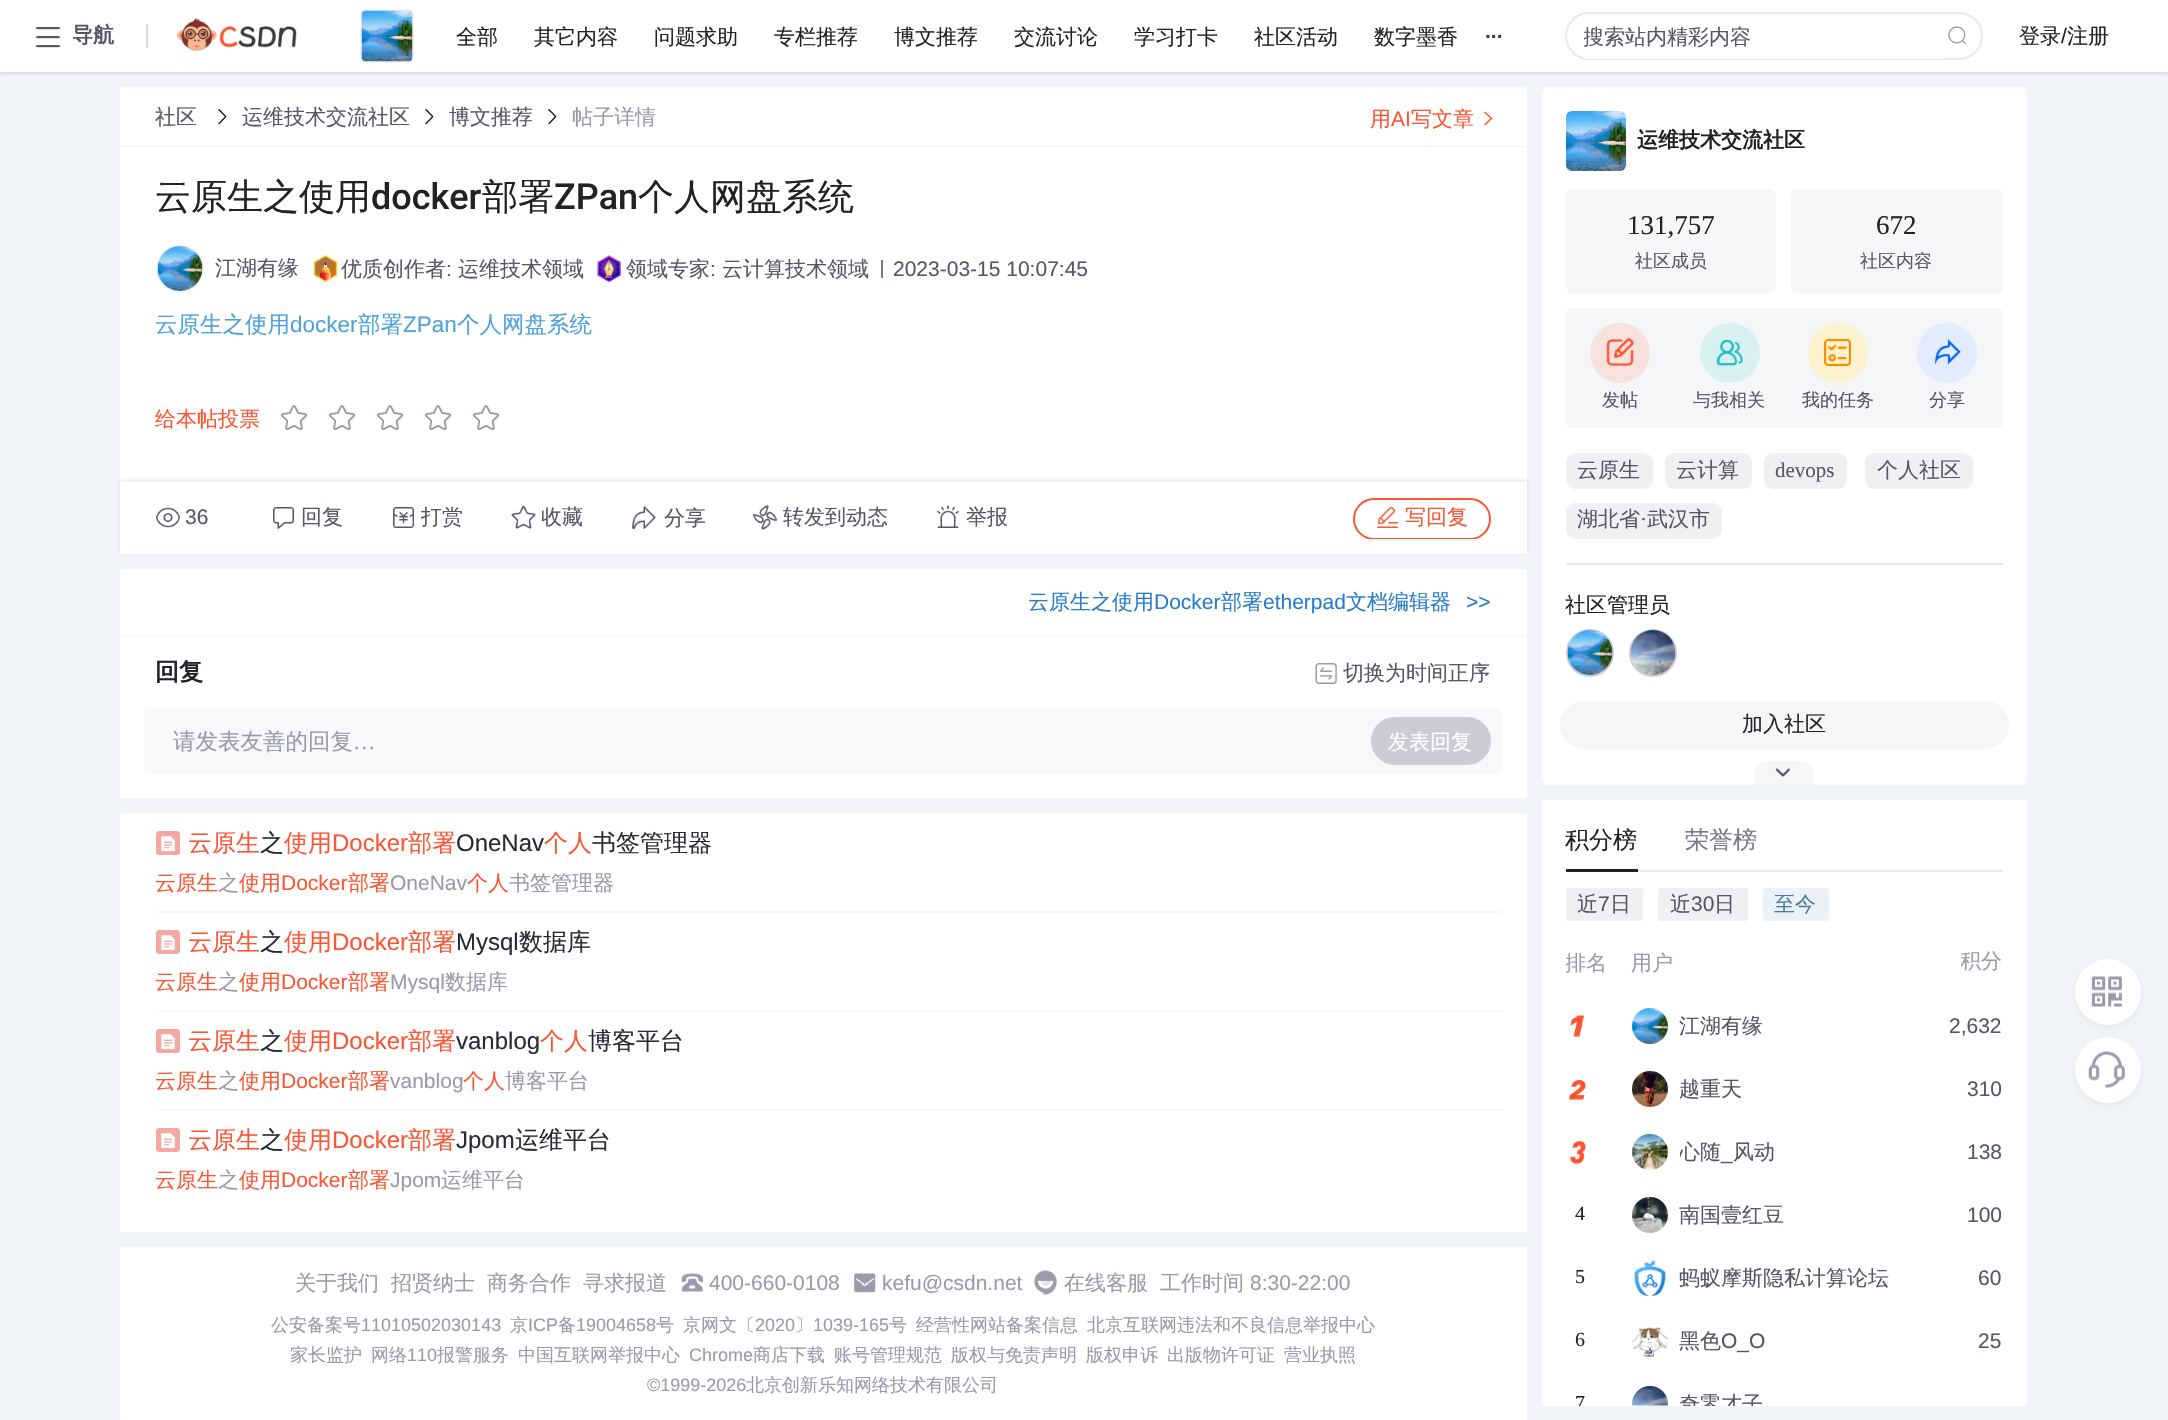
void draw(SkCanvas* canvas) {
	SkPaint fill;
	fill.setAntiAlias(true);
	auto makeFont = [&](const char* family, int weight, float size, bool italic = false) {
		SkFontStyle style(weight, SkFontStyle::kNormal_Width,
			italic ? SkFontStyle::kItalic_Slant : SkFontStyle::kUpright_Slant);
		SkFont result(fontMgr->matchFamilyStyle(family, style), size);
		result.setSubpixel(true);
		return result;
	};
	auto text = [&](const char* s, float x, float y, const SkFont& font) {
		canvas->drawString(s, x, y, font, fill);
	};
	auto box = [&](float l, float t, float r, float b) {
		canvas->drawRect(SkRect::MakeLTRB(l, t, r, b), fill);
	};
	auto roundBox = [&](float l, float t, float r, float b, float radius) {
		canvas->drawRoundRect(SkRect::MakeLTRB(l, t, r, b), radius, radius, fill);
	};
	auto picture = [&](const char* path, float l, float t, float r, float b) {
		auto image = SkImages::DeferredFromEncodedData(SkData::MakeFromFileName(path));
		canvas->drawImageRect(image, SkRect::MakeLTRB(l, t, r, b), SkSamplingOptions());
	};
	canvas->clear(0xFFF2F5F7);
	fill.setColor(0x1A000000);
	fill.setMaskFilter(SkMaskFilter::MakeBlur(kNormal_SkBlurStyle, 1.5f));
	canvas->drawRect(SkRect::MakeLTRB(0, 2, 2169, 74), fill);
	fill.setMaskFilter(nullptr);
	fill.setColor(0xFFFFFFFF);
	box(0, 0, 2168, 72);
	picture("image0.png", 36, 27, 60, 48);
	fill.setColor(0xFFD8D8D8);
	roundBox(146, 24, 148, 48, 1);
	picture("image1.png", 177, 18, 297, 51);
	fill.setStyle(SkPaint::kStroke_Style);
	fill.setStrokeWidth(2);
	fill.setColor(0xFFF2F2F2);
	canvas->drawRoundRect(SkRect::MakeLTRB(361, 10, 413, 62), 5, 5, fill);
	picture("image2.png", 361, 10, 413, 62);
	fill.setColor(0xFFE8E8ED);
	canvas->drawRoundRect(SkRect::MakeLTRB(1566, 13, 1982, 59), 23, 23, fill);
	canvas->save();
	canvas->clipPath(SkPathBuilder().moveTo(1588.5f, 14).lineTo(1959.5f, 14).cubicTo(1972, 14, 1982, 24, 1982, 36.5f).cubicTo(1982, 49, 1972, 59, 1959.5f, 59).lineTo(1588.5f, 59).cubicTo(1576, 59, 1566, 49, 1566, 36.5f).cubicTo(1566, 24, 1576, 14, 1588.5f, 14).close().detach(), true);
	fill.setStyle(SkPaint::kFill_Style);
	fill.setColor(0xFFFFFFFF);
	box(1584, 14, 1943, 59);
	canvas->restore();
	picture("image3.png", 1948, 26, 1966, 45);
	canvas->drawPath(SkPathBuilder().moveTo(123, 87).lineTo(1524, 87).cubicTo(1525.5f, 87, 1527, 88.5f, 1527, 90).lineTo(1527, 147).lineTo(120, 147).lineTo(120, 90).cubicTo(120, 88.5f, 121.5f, 87, 123, 87).close().detach(), fill);
	fill.setColor(0xFFF2F2F2);
	box(120, 146, 1527, 147);
	picture("image4.png", 218, 109, 227, 125);
	picture("image4.png", 425, 109, 434, 125);
	picture("image4.png", 548, 109, 557, 125);
	fill.setColor(0xFFFC5531);
	canvas->drawPath(SkPathBuilder().moveTo(1484, 112.5f).lineTo(1485, 111.5f).lineTo(1492.5f, 118.5f).lineTo(1491.5f, 119.5f).close().detach(), fill);
	canvas->drawPath(SkPathBuilder().moveTo(1484, 124.5f).lineTo(1491.5f, 117.5f).lineTo(1492.5f, 118.5f).lineTo(1485, 125.5f).close().detach(), fill);
	fill.setColor(0xFFFFFFFF);
	box(120, 147, 1527, 482);
	fill.setStyle(SkPaint::kStroke_Style);
	fill.setColor(0xFFF2F2F2);
	canvas->drawCircle(180, 269, 23, fill);
	picture("image5.png", 157, 246, 203, 291);
	picture("image6.png", 313, 255, 338, 282);
	picture("image7.png", 597, 255, 621, 282);
	fill.setStyle(SkPaint::kFill_Style);
	fill.setColor(0xFF777888);
	box(881, 260, 883, 278);
	picture("image8.png", 281, 405, 307, 430);
	picture("image8.png", 329, 405, 355, 430);
	picture("image8.png", 377, 405, 403, 430);
	picture("image8.png", 425, 405, 451, 430);
	picture("image8.png", 473, 405, 499, 430);
	fill.setColor(0x1A121212);
	fill.setMaskFilter(SkMaskFilter::MakeBlur(kNormal_SkBlurStyle, 2));
	canvas->drawRect(SkRect::MakeLTRB(120, 480, 1527, 552), fill);
	fill.setMaskFilter(nullptr);
	fill.setColor(0xFFFFFFFF);
	box(120, 482, 1527, 554);
	picture("image9.png", 156, 507, 180, 528);
	picture("image10.png", 273, 507, 294, 529);
	picture("image11.png", 393, 507, 414, 528);
	picture("image12.png", 511, 505, 536, 529);
	picture("image13.png", 632, 506, 656, 530);
	picture("image14.png", 753, 505, 777, 530);
	picture("image15.png", 936, 505, 960, 528);
	canvas->save();
	canvas->clipRect(SkRect::MakeLTRB(120, 497, 1527, 539));
	fill.setStyle(SkPaint::kStroke_Style);
	fill.setColor(0xFFFC5531);
	canvas->drawRoundRect(SkRect::MakeLTRB(1354, 499, 1490, 539), 20, 20, fill);
	canvas->restore();
	picture("image16.png", 1377, 506, 1398, 528);
	fill.setStyle(SkPaint::kFill_Style);
	fill.setColor(0xFFFFFFFF);
	box(120, 569, 1527, 635);
	box(120, 636, 1527, 798);
	picture("image17.png", 1315, 663, 1338, 684);
	fill.setColor(0xFFF7F8F9);
	roundBox(144, 708, 1503, 774, 6);
	fill.setColor(0xFFCCCCD7);
	roundBox(1371, 717, 1491, 765, 24);
	fill.setColor(0xFFFFFFFF);
	box(120, 813, 1527, 1232);
	fill.setColor(0xFFF7F7FC);
	box(156, 911, 1503, 913);
	picture("image18.png", 156, 831, 180, 855);
	box(156, 1010, 1503, 1012);
	picture("image18.png", 156, 930, 180, 954);
	box(156, 1109, 1503, 1111);
	picture("image18.png", 156, 1029, 180, 1053);
	picture("image18.png", 156, 1128, 180, 1152);
	fill.setColor(0xFFFFFFFF);
	canvas->drawPath(SkPathBuilder().moveTo(120, 1247).lineTo(1527, 1247).lineTo(1527, 1418).cubicTo(1527, 1419.5f, 1525.5f, 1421, 1524, 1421).lineTo(123, 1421).cubicTo(121.5f, 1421, 120, 1419.5f, 120, 1418).close().detach(), fill);
	picture("image19.png", 681, 1273, 703, 1292);
	picture("image20.png", 854, 1273, 876, 1293);
	picture("image21.png", 1034, 1270, 1057, 1295);
	roundBox(1542, 87, 2027, 785, 6);
	picture("image22.png", 1566, 111, 1626, 171);
	fill.setColor(0xFFF5F6F7);
	roundBox(1566, 189, 1776, 293, 6);
	roundBox(1791, 189, 2003, 293, 6);
	roundBox(1566, 308, 2003, 428, 6);
	fill.setColor(0xFFF7E2DD);
	canvas->drawCircle(1620, 353, 30, fill);
	picture("image23.png", 1606, 337, 1634, 366);
	fill.setColor(0xFFD7F1F1);
	canvas->drawCircle(1730, 353, 30, fill);
	picture("image24.png", 1716, 339, 1743, 366);
	fill.setColor(0xFFFDF2CE);
	canvas->drawCircle(1838, 353, 30, fill);
	picture("image25.png", 1824, 339, 1851, 366);
	fill.setColor(0xFFE2EBFF);
	canvas->drawCircle(1947, 353, 30, fill);
	picture("image26.png", 1935, 339, 1961, 365);
	fill.setColor(0xFFF0F0F2);
	roundBox(1566, 453, 1653, 489, 9);
	roundBox(1665, 453, 1752, 489, 9);
	roundBox(1764, 453, 1847, 489, 9);
	roundBox(1865, 453, 1973, 489, 9);
	roundBox(1566, 503, 1722, 539, 9);
	fill.setColor(0xFFE8E8ED);
	box(1566, 563, 2003, 565);
	fill.setStyle(SkPaint::kStroke_Style);
	fill.setColor(0xFFCCCCD8);
	canvas->drawCircle(1590, 653, 23, fill);
	picture("image27.png", 1567, 630, 1613, 675);
	canvas->drawCircle(1653, 653, 23, fill);
	picture("image28.png", 1630, 630, 1676, 675);
	fill.setStyle(SkPaint::kFill_Style);
	fill.setColor(0xFFF5F6F7);
	roundBox(1560, 701, 2009, 749, 24);
	canvas->drawPath(SkPathBuilder().moveTo(1769, 761).lineTo(1799, 761).cubicTo(1807.5f, 761, 1814, 767.5f, 1814, 776).lineTo(1814, 785).lineTo(1754, 785).lineTo(1754, 776).cubicTo(1754, 767.5f, 1760.5f, 761, 1769, 761).close().detach(), fill);
	picture("image29.png", 1775, 768, 1791, 777);
	fill.setColor(0xFFFFFFFF);
	box(1542, 800, 2027, 1406);
	fill.setColor(0xFF222226);
	box(1566, 869, 1638, 872);
	fill.setColor(0xFFE8E8ED);
	box(1638, 870, 2003, 872);
	fill.setColor(0xFFF0F0F2);
	roundBox(1566, 888, 1643, 921, 3);
	roundBox(1658, 888, 1748, 921, 3);
	fill.setColor(0xFFEBF2F7);
	roundBox(1763, 888, 1829, 921, 3);
	picture("image30.png", 1570, 1015, 1584, 1037);
	picture("image31.png", 1632, 1008, 1668, 1044);
	picture("image32.png", 1569, 1080, 1586, 1100);
	picture("image33.png", 1632, 1071, 1668, 1107);
	picture("image34.png", 1570, 1140, 1586, 1164);
	picture("image35.png", 1632, 1134, 1668, 1170);
	picture("image36.png", 1632, 1197, 1668, 1233);
	picture("image37.png", 1634, 1260, 1666, 1296);
	picture("image38.png", 1632, 1327, 1668, 1358);
	picture("image39.png", 1632, 1386, 1668, 1406);
	fill.setColor(0x0D000000);
	fill.setMaskFilter(SkMaskFilter::MakeBlur(kNormal_SkBlurStyle, 3));
	canvas->drawRoundRect(SkRect::MakeLTRB(2075, 962, 2141, 1028), 33, 33, fill);
	fill.setMaskFilter(nullptr);
	fill.setColor(0xFFFFFFFF);
	canvas->drawCircle(2108, 992, 33, fill);
	picture("image40.png", 2091, 976, 2122, 1007);
	fill.setColor(0x0D000000);
	fill.setMaskFilter(SkMaskFilter::MakeBlur(kNormal_SkBlurStyle, 3));
	canvas->drawRoundRect(SkRect::MakeLTRB(2075, 1040, 2141, 1106), 33, 33, fill);
	fill.setMaskFilter(nullptr);
	fill.setColor(0xFFFFFFFF);
	canvas->drawCircle(2108, 1070, 33, fill);
	picture("image41.png", 2088, 1051, 2125, 1088);
	auto font1 = makeFont("WenQuanYi Zen Hei", 700, 21);
	fill.setColor(0xFF555666);
	text("导航", 72, 42, font1);
	auto font2 = makeFont("WenQuanYi Zen Hei", 500, 21);
	fill.setColor(0xFF222226);
	text("全部", 456, 44, font2);
	text("其它内容", 534, 44, font2);
	text("问题求助", 654, 44, font2);
	text("专栏推荐", 774, 44, font2);
	text("博文推荐", 894, 44, font2);
	text("交流讨论", 1014, 44, font2);
	text("学习打卡", 1134, 44, font2);
	text("社区活动", 1254, 44, font2);
	text("数字墨香", 1374, 44, font2);
	auto font3 = makeFont("Liberation Sans", 700, 21);
	fill.setColor(0xFF404040);
	text("...", 1485, 38, font3);
	canvas->save();
	canvas->clipRect(SkRect::MakeLTRB(1584, 24, 1943, 51));
	fill.setColor(0xFF555666);
	text("搜索站内精彩内容", 1583, 44, font2);
	canvas->restore();
	fill.setColor(0xFF222226);
	text("登录", 2019, 43, font2);
	auto font4 = makeFont("Liberation Sans", 400, 21);
	text("/", 2061, 43, font4);
	text("注册", 2067, 43, font2);
	fill.setColor(0xFF555666);
	text("社区", 155, 124, font2);
	text("运维技术交流社区", 242, 124, font2);
	text("博文推荐", 449, 124, font2);
	fill.setColor(0xFF999AAA);
	text("帖子详情", 572, 124, font2);
	fill.setColor(0xFFFC5533);
	text("用", 1370, 126, font2);
	text("AI", 1391, 126, font4);
	text("写文章", 1411, 126, font2);
	auto font5 = makeFont("WenQuanYi Zen Hei", 500, 36);
	fill.setColor(0xFF222226);
	text("云原生之使用", 155, 209, font5);
	auto font6 = makeFont("Roboto", 500, 36);
	text("docker", 371, 209, font6);
	text("部署", 482, 209, font5);
	text("ZPan", 554, 209, font6);
	text("个人网盘系统", 638, 209, font5);
	fill.setColor(0xFF555666);
	text("江湖有缘", 215, 275, font2);
	text("优质创作者", 341, 276, font2);
	text(":", 446, 276, font4);
	text("运维技术领域", 458, 276, font2);
	text("领域专家", 626, 276, font2);
	text(":", 710, 276, font4);
	text("云计算技术领域", 722, 276, font2);
	text("2023-03-15 10:07:45", 893, 276, font4);
	auto font7 = makeFont("WenQuanYi Zen Hei", 500, 22.5f);
	fill.setColor(0xFF4EA1DB);
	text("云原生之使用", 155, 332, font7);
	auto font8 = makeFont("Liberation Sans", 400, 22.5f);
	text("docker", 290, 332, font8);
	text("部署", 358, 332, font7);
	text("ZPan", 403, 332, font8);
	text("个人网盘系统", 457, 332, font7);
	fill.setColor(0xFFFC5533);
	text("给本帖投票", 155, 426, font2);
	fill.setColor(0xFF555666);
	text("36", 185, 524, font4);
	text("回复", 301, 524, font2);
	text("打赏", 421, 524, font2);
	text("收藏", 541, 524, font2);
	text("分享", 664, 525, font2);
	text("转发到动态", 783, 524, font2);
	text("举报", 966, 524, font2);
	fill.setColor(0xFFFC5533);
	text("写回复", 1405, 524, font2);
	fill.setColor(0xFF277CCC);
	text("云原生之使用", 1028, 609, font2);
	text("Docker", 1154, 609, font4);
	text("部署", 1221, 609, font2);
	text("etherpad", 1263, 609, font4);
	text("文档编辑器", 1346, 609, font2);
	text(">>", 1466, 609, font4);
	auto font9 = makeFont("WenQuanYi Zen Hei", 700, 24);
	fill.setColor(0xFF20232C);
	text("回复", 155, 680, font9);
	fill.setColor(0xFF555666);
	text("切换为时间正序", 1343, 680, font2);
	fill.setColor(0xFF999AAA);
	text("请发表友善的回复", 173, 749, font7);
	auto font10 = makeFont("Liberation Serif", 400, 22.5f);
	text("…", 353, 749, font10);
	fill.setColor(0xFFFFFFFF);
	text("发表回复", 1388, 749, font2);
	auto font11 = makeFont("WenQuanYi Zen Hei", 500, 24);
	fill.setColor(0xFFFC5533);
	text("云原生", 188, 851, font11);
	fill.setColor(0xFF282B31);
	text("之", 260, 851, font11);
	fill.setColor(0xFFFC5533);
	text("使用", 284, 851, font11);
	auto font12 = makeFont("Liberation Sans", 400, 24);
	text("Docker", 332, 851, font12);
	text("部署", 408, 851, font11);
	fill.setColor(0xFF282B31);
	text("OneNav", 456, 851, font12);
	fill.setColor(0xFFFC5533);
	text("个人", 544, 851, font11);
	fill.setColor(0xFF282B31);
	text("书签管理器", 592, 851, font11);
	fill.setColor(0xFFFC5533);
	text("云原生", 155, 890, font2);
	fill.setColor(0xFF999AAA);
	text("之", 218, 890, font2);
	fill.setColor(0xFFFC5533);
	text("使用", 239, 890, font2);
	text("Docker", 281, 890, font4);
	text("部署", 348, 890, font2);
	fill.setColor(0xFF999AAA);
	text("OneNav", 390, 890, font4);
	fill.setColor(0xFFFC5533);
	text("个人", 467, 890, font2);
	fill.setColor(0xFF999AAA);
	text("书签管理器", 509, 890, font2);
	fill.setColor(0xFFFC5533);
	text("云原生", 188, 950, font11);
	fill.setColor(0xFF282B31);
	text("之", 260, 950, font11);
	fill.setColor(0xFFFC5533);
	text("使用", 284, 950, font11);
	text("Docker", 332, 950, font12);
	text("部署", 408, 950, font11);
	fill.setColor(0xFF282B31);
	text("Mysql", 456, 950, font12);
	text("数据库", 519, 950, font11);
	fill.setColor(0xFFFC5533);
	text("云原生", 155, 989, font2);
	fill.setColor(0xFF999AAA);
	text("之", 218, 989, font2);
	fill.setColor(0xFFFC5533);
	text("使用", 239, 989, font2);
	text("Docker", 281, 989, font4);
	text("部署", 348, 989, font2);
	fill.setColor(0xFF999AAA);
	text("Mysql", 390, 989, font4);
	text("数据库", 445, 989, font2);
	fill.setColor(0xFFFC5533);
	text("云原生", 188, 1049, font11);
	fill.setColor(0xFF282B31);
	text("之", 260, 1049, font11);
	fill.setColor(0xFFFC5533);
	text("使用", 284, 1049, font11);
	text("Docker", 332, 1049, font12);
	text("部署", 408, 1049, font11);
	fill.setColor(0xFF282B31);
	text("vanblog", 456, 1049, font12);
	fill.setColor(0xFFFC5533);
	text("个人", 540, 1049, font11);
	fill.setColor(0xFF282B31);
	text("博客平台", 588, 1049, font11);
	fill.setColor(0xFFFC5533);
	text("云原生", 155, 1088, font2);
	fill.setColor(0xFF999AAA);
	text("之", 218, 1088, font2);
	fill.setColor(0xFFFC5533);
	text("使用", 239, 1088, font2);
	text("Docker", 281, 1088, font4);
	text("部署", 348, 1088, font2);
	fill.setColor(0xFF999AAA);
	text("vanblog", 390, 1088, font4);
	fill.setColor(0xFFFC5533);
	text("个人", 463, 1088, font2);
	fill.setColor(0xFF999AAA);
	text("博客平台", 505, 1088, font2);
	fill.setColor(0xFFFC5533);
	text("云原生", 188, 1148, font11);
	fill.setColor(0xFF282B31);
	text("之", 260, 1148, font11);
	fill.setColor(0xFFFC5533);
	text("使用", 284, 1148, font11);
	text("Docker", 332, 1148, font12);
	text("部署", 408, 1148, font11);
	fill.setColor(0xFF282B31);
	text("Jpom", 456, 1148, font12);
	text("运维平台", 515, 1148, font11);
	fill.setColor(0xFFFC5533);
	text("云原生", 155, 1187, font2);
	fill.setColor(0xFF999AAA);
	text("之", 218, 1187, font2);
	fill.setColor(0xFFFC5533);
	text("使用", 239, 1187, font2);
	text("Docker", 281, 1187, font4);
	text("部署", 348, 1187, font2);
	fill.setColor(0xFF999AAA);
	text("Jpom", 390, 1187, font4);
	text("运维平台", 441, 1187, font2);
	text("关于我们", 295, 1290, font2);
	text("招贤纳士", 391, 1290, font2);
	text("商务合作", 487, 1290, font2);
	text("寻求报道", 583, 1290, font2);
	text("400-660-0108", 709, 1290, font4);
	text("kefu@csdn.net", 882, 1290, font4);
	text("在线客服", 1064, 1290, font2);
	text("工作时间", 1160, 1290, font2);
	text("8:30-22:00", 1250, 1290, font4);
	auto font13 = makeFont("WenQuanYi Zen Hei", 500, 18);
	text("公安备案号", 271, 1331, font13);
	auto font14 = makeFont("Liberation Sans", 400, 18);
	text("11010502030143", 361, 1331, font14);
	text("京", 510, 1331, font13);
	text("ICP", 528, 1331, font14);
	text("备", 558, 1331, font13);
	text("19004658", 576, 1331, font14);
	text("号", 656, 1331, font13);
	text("京网文〔", 683, 1331, font13);
	text("2020", 755, 1331, font14);
	text("〕", 795, 1331, font13);
	text("1039-165", 813, 1331, font14);
	text("号", 889, 1331, font13);
	text("经营性网站备案信息", 916, 1331, font13);
	text("北京互联网违法和不良信息举报中心", 1087, 1331, font13);
	text("家长监护", 290, 1361, font13);
	text("网络", 371, 1361, font13);
	text("110", 407, 1361, font14);
	text("报警服务", 437, 1361, font13);
	text("中国互联网举报中心", 518, 1361, font13);
	text("Chrome", 689, 1361, font14);
	text("商店下载", 753, 1361, font13);
	text("账号管理规范", 834, 1361, font13);
	text("版权与免责声明", 951, 1361, font13);
	text("版权申诉", 1086, 1361, font13);
	text("出版物许可证", 1167, 1361, font13);
	text("营业执照", 1284, 1361, font13);
	text("©1999-2026", 647, 1391, font14);
	text("北京创新乐知网络技术有限公司", 746, 1391, font13);
	fill.setColor(0xFF222226);
	text("运维技术交流社区", 1637, 147, font1);
	auto font15 = makeFont("Liberation Serif", 400, 27);
	text("131,757", 1627, 234, font15);
	fill.setColor(0xFF555666);
	text("社区成员", 1635, 267, font13);
	fill.setColor(0xFF222226);
	text("672", 1876, 234, font15);
	fill.setColor(0xFF555666);
	text("社区内容", 1860, 267, font13);
	text("发帖", 1602, 406, font13);
	text("与我相关", 1693, 406, font13);
	text("我的任务", 1802, 406, font13);
	text("分享", 1929, 406, font13);
	text("云原生", 1577, 477, font2);
	text("云计算", 1676, 477, font2);
	auto font16 = makeFont("Liberation Serif", 400, 21);
	text("devops", 1775, 477, font16);
	text("个人社区", 1877, 477, font2);
	text("湖北省", 1577, 526, font2);
	text("·", 1640, 526, font16);
	text("武汉市", 1647, 526, font2);
	fill.setColor(0xFF222226);
	text("社区管理员", 1565, 612, font2);
	text("加入社区", 1742, 731, font2);
	text("积分榜", 1565, 848, font11);
	fill.setColor(0xFF777888);
	text("荣誉榜", 1685, 848, font11);
	fill.setColor(0xFF555666);
	text("近", 1577, 911, font2);
	text("7", 1598, 911, font4);
	text("日", 1610, 911, font2);
	text("近", 1670, 911, font2);
	text("30", 1691, 911, font4);
	text("日", 1714, 911, font2);
	fill.setColor(0xFF507999);
	text("至今", 1774, 911, font2);
	canvas->save();
	canvas->clipRect(SkRect::MakeLTRB(1566, 939, 1674, 987));
	fill.setColor(0xFF999AAA);
	text("排名", 1565, 970, font2);
	canvas->restore();
	text("用户", 1631, 970, font2);
	canvas->save();
	canvas->clipRect(SkRect::MakeLTRB(1961, 939, 2003, 987));
	text("积分", 1960, 968, font2);
	canvas->restore();
	fill.setColor(0xFF555666);
	text("江湖有缘", 1679, 1033, font2);
	text("2,632", 1949, 1033, font4);
	text("越重天", 1679, 1096, font2);
	text("310", 1967, 1096, font4);
	canvas->save();
	canvas->clipRect(SkRect::MakeLTRB(1680, 1128, 1775, 1176));
	text("心随", 1679, 1159, font2);
	canvas->restore();
	text("风动", 1733, 1159, font2);
	text("_", 1721, 1159, font4);
	text("138", 1967, 1159, font4);
	auto font17 = makeFont("Liberation Serif", 400, 20);
	fill.setColor(0xFF222226);
	text("4", 1575, 1220, font17);
	fill.setColor(0xFF555666);
	text("南国壹红豆", 1679, 1222, font2);
	text("100", 1967, 1222, font4);
	fill.setColor(0xFF222226);
	text("5", 1575, 1283, font17);
	fill.setColor(0xFF555666);
	text("蚂蚁摩斯隐私计算论坛", 1679, 1285, font2);
	text("60", 1978, 1285, font4);
	fill.setColor(0xFF222226);
	text("6", 1575, 1346, font17);
	fill.setColor(0xFF555666);
	text("黑色", 1679, 1348, font2);
	text("O_O", 1721, 1348, font4);
	text("25", 1978, 1348, font4);
	canvas->save();
	canvas->clipRect(SkRect::MakeLTRB(1566, 1380, 1764, 1406));
	fill.setColor(0xFF222226);
	text("7", 1575, 1409, font17);
	canvas->restore();
	canvas->save();
	canvas->clipRect(SkRect::MakeLTRB(1680, 1380, 1764, 1406));
	fill.setColor(0xFF555666);
	text("奇零才子", 1679, 1411, font2);
	canvas->restore();
}
